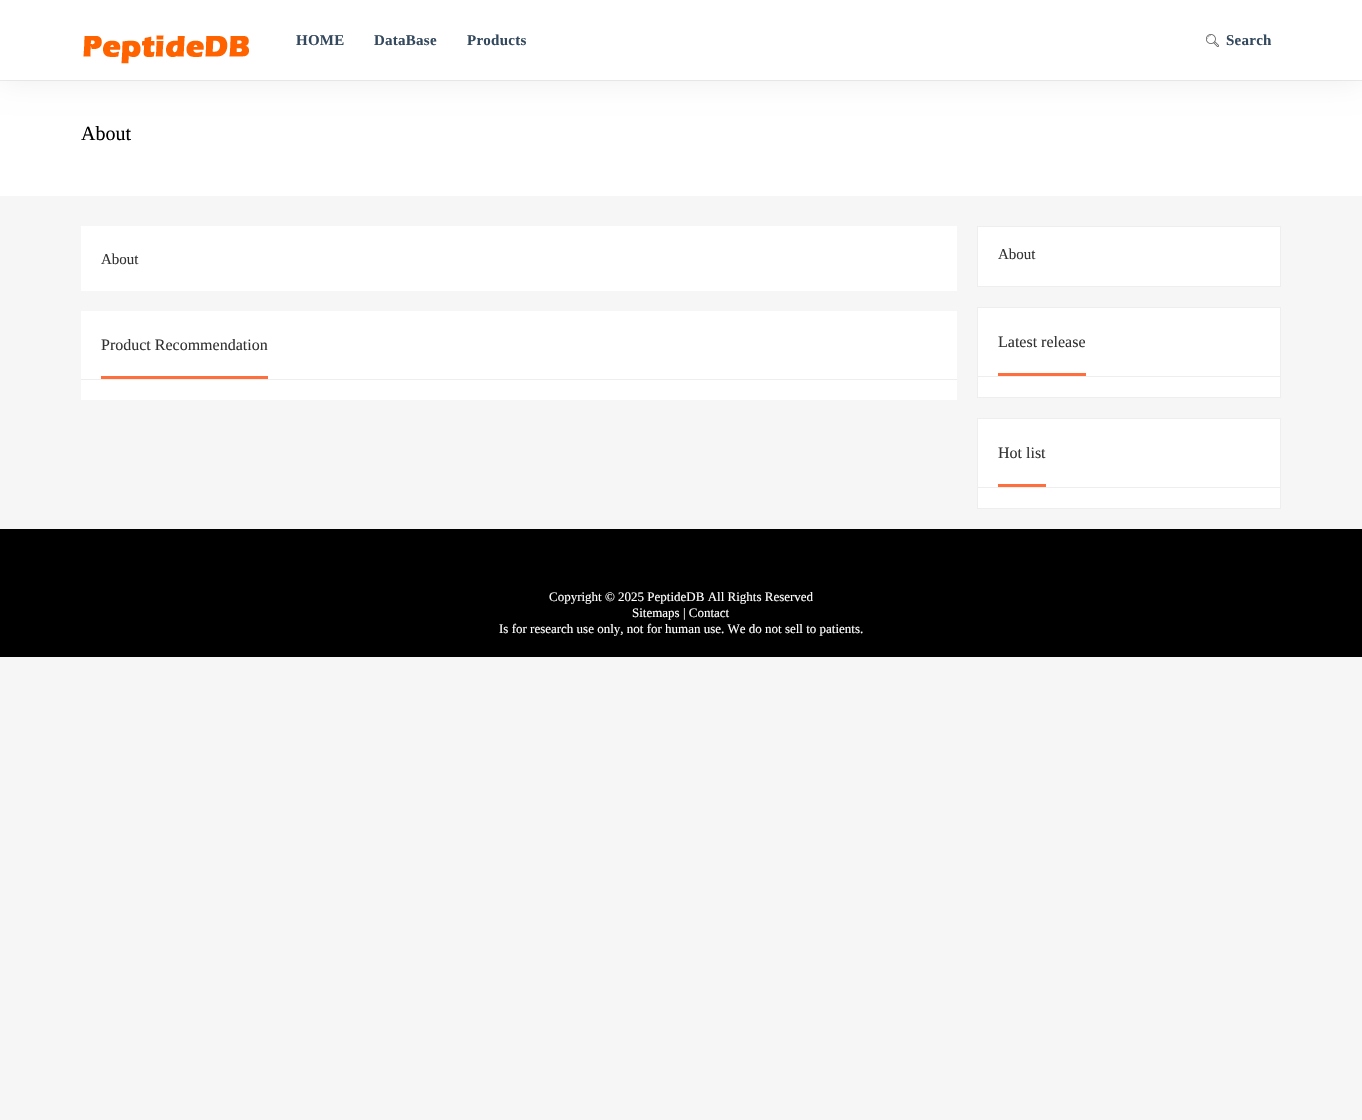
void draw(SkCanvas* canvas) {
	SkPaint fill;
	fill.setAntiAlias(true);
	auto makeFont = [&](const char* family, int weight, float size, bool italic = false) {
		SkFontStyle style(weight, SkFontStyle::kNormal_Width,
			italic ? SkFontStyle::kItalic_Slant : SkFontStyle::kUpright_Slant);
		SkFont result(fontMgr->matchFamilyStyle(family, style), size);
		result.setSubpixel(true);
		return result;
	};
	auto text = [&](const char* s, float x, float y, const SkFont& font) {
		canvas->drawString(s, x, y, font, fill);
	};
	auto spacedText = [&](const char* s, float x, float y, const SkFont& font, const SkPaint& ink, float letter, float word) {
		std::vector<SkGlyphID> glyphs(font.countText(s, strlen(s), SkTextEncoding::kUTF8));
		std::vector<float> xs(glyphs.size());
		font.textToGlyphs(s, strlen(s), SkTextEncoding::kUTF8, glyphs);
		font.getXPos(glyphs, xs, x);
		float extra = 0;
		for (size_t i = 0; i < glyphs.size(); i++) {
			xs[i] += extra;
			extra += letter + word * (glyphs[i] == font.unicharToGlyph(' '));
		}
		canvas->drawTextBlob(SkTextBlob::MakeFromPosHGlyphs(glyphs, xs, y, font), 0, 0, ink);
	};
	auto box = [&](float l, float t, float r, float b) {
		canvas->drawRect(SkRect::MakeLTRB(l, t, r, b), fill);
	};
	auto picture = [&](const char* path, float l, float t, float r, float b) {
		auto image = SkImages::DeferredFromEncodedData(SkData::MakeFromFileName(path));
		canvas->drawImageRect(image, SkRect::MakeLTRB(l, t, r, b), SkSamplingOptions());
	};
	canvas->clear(0xFFF6F6F6);
	fill.setColor(0xFFFFFFFF);
	box(0, 81, 1362, 196);
	fill.setColor(0xFFEEEEEE);
	box(0, 80, 1362, 81);
	fill.setColor(0x12000000);
	fill.setMaskFilter(SkMaskFilter::MakeBlur(kNormal_SkBlurStyle, 15));
	canvas->drawRect(SkRect::MakeLTRB(0, 0, 1362, 80), fill);
	fill.setMaskFilter(nullptr);
	fill.setColor(0xFFFFFFFF);
	box(0, 0, 1362, 80);
	picture("image0.png", 83, 35, 249, 64);
	picture("image1.png", 1206, 34, 1219, 47);
	box(81, 226, 957, 291);
	box(81, 311, 957, 400);
	fill.setColor(0xFFEEEEEE);
	box(81, 379, 957, 380);
	fill.setColor(0xFFFF6F3D);
	box(101, 376, 268, 379);
	fill.setColor(0xFFFFFFFF);
	canvas->drawRect(SkRect::MakeLTRB(977.5f, 226.5f, 1280.5f, 286.5f), fill);
	fill.setStyle(SkPaint::kStroke_Style);
	fill.setStrokeWidth(1);
	fill.setColor(0xFFEEEEEE);
	canvas->drawRect(SkRect::MakeLTRB(977.5f, 226.5f, 1280.5f, 286.5f), fill);
	fill.setStyle(SkPaint::kFill_Style);
	fill.setColor(0xFFFFFFFF);
	canvas->drawRect(SkRect::MakeLTRB(977.5f, 307.5f, 1280.5f, 397.5f), fill);
	fill.setStyle(SkPaint::kStroke_Style);
	fill.setColor(0xFFEEEEEE);
	canvas->drawRect(SkRect::MakeLTRB(977.5f, 307.5f, 1280.5f, 397.5f), fill);
	fill.setStyle(SkPaint::kFill_Style);
	box(978, 376, 1280, 377);
	fill.setColor(0xFFFF6F3D);
	box(998, 373, 1086, 376);
	fill.setColor(0xFFFFFFFF);
	canvas->drawRect(SkRect::MakeLTRB(977.5f, 418.5f, 1280.5f, 508.5f), fill);
	fill.setStyle(SkPaint::kStroke_Style);
	fill.setColor(0xFFEEEEEE);
	canvas->drawRect(SkRect::MakeLTRB(977.5f, 418.5f, 1280.5f, 508.5f), fill);
	fill.setStyle(SkPaint::kFill_Style);
	box(978, 487, 1280, 488);
	fill.setColor(0xFFFF6F3D);
	box(998, 484, 1046, 487);
	fill.setColor(0xFF000000);
	box(0, 529, 1362, 657);
	auto font1 = makeFont("Liberation Serif", 700, 15);
	fill.setColor(0xFF34495E);
	spacedText("HOME", 296, 45, font1, fill, 0.25f, 0);
	spacedText("DataBase", 374, 45, font1, fill, 0.25f, 0);
	spacedText("Products", 467, 45, font1, fill, 0.25f, 0);
	spacedText("Search", 1226, 45, font1, fill, 0.25f, 0);
	auto font2 = makeFont("Liberation Serif", 400, 20);
	fill.setColor(0xFF000000);
	text("About", 81, 140, font2);
	auto font3 = makeFont("Liberation Serif", 400, 15);
	fill.setColor(0xFF333333);
	text("About", 101, 264, font3);
	auto font4 = makeFont("Liberation Serif", 400, 16);
	text("Product Recommendation", 101, 350, font4);
	text("About", 998, 259, font3);
	text("Latest release", 998, 347, font4);
	text("Hot list", 998, 458, font4);
	auto font5 = makeFont("Liberation Serif", 400, 13);
	fill.setColor(0xFFFFFFFF);
	text("Copyright © 2025 PeptideDB All Rights Reserved", 549, 601, font5);
	text("Sitemaps | Contact", 632, 617, font5);
	text("Is for research use only, not for human use. We do not sell to patients.", 499, 633, font5);
}
